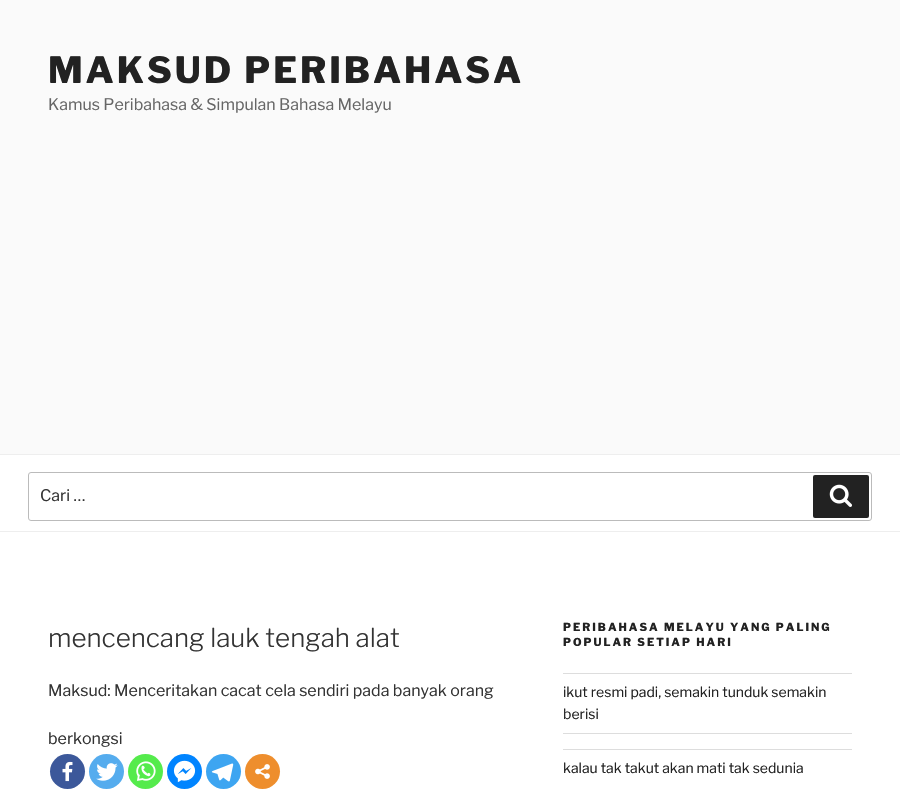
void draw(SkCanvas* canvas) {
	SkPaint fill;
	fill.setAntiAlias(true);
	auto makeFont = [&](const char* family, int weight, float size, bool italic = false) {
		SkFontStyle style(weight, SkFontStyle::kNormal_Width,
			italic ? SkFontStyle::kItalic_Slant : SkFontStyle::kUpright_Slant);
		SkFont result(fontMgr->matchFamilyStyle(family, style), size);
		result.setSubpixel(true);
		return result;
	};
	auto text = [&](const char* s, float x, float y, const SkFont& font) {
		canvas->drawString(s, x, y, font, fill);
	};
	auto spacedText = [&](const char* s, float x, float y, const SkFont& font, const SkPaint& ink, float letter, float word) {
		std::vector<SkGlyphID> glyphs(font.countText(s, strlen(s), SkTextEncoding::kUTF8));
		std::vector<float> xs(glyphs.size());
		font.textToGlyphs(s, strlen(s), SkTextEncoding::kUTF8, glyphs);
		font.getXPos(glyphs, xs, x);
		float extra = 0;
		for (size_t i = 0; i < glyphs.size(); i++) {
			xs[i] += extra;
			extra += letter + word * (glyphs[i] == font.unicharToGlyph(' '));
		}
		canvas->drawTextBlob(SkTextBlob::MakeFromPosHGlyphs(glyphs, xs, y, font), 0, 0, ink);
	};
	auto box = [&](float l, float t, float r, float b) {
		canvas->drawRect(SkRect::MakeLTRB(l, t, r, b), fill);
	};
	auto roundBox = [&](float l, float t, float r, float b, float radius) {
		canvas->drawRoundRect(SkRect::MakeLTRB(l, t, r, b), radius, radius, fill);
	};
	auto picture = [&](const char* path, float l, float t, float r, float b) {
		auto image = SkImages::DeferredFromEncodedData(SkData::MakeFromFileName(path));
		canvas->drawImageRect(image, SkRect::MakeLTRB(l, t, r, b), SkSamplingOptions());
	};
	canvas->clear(0xFFFFFFFF);
	fill.setColor(0xFFFAFAFA);
	box(0, 0, 900, 454);
	fill.setColor(0xFFEEEEEE);
	box(0, 454, 900, 455);
	box(0, 531, 900, 532);
	fill.setStyle(SkPaint::kStroke_Style);
	fill.setStrokeWidth(1);
	fill.setColor(0xFFBBBBBB);
	canvas->drawRoundRect(SkRect::MakeLTRB(28.5f, 472.5f, 871.5f, 520.5f), 2.5f, 2.5f, fill);
	fill.setStyle(SkPaint::kFill_Style);
	fill.setColor(0xFF222222);
	roundBox(813, 475, 869, 518, 2);
	picture("image0.png", 829, 484, 852, 507);
	fill.setColor(0xFF3C589A);
	canvas->drawCircle(67.5f, 771.5f, 17.5f, fill);
	picture("image1.png", 62, 761, 73, 782);
	fill.setColor(0xFF55ACEE);
	canvas->drawCircle(106.5f, 771.5f, 17.5f, fill);
	picture("image2.png", 96, 763, 118, 781);
	fill.setColor(0xFF55EB4C);
	canvas->drawCircle(145.5f, 771.5f, 17.5f, fill);
	picture("image3.png", 136, 761, 156, 781);
	fill.setColor(0xFF0084FF);
	canvas->drawCircle(184.5f, 771.5f, 17.5f, fill);
	picture("image4.png", 173, 760, 196, 783);
	fill.setColor(0xFF3DA5F1);
	canvas->drawCircle(223.5f, 771.5f, 17.5f, fill);
	picture("image5.png", 211, 763, 234, 782);
	fill.setColor(0xFFEE8E2D);
	canvas->drawCircle(262.5f, 771.5f, 17.5f, fill);
	picture("image6.png", 255, 764, 270, 779);
	fill.setColor(0xFFDDDDDD);
	box(563, 673, 852, 674);
	box(563, 733, 852, 734);
	box(563, 749, 852, 750);
	auto font1 = makeFont("Libre Franklin", 800, 36);
	fill.setColor(0xFF222222);
	spacedText("MAKSUD PERIBAHASA", 48, 83, font1, fill, 2.9f, 0);
	auto font2 = makeFont("Libre Franklin", 400, 16);
	fill.setColor(0xFF666666);
	text("Kamus Peribahasa & Simpulan Bahasa Melayu", 48, 110, font2);
	fill.setColor(0xFF333333);
	text("Cari …", 40, 501, font2);
	auto font3 = makeFont("Libre Franklin", 300, 26);
	text("mencencang lauk tengah alat", 48, 647, font3);
	text("Maksud: Menceritakan cacat cela sendiri pada banyak orang", 48, 696, font2);
	text("berkongsi", 48, 744, font2);
	auto font4 = makeFont("Libre Franklin", 800, 11);
	fill.setColor(0xFF222222);
	spacedText("PERIBAHASA MELAYU YANG PALING", 563, 631, font4, fill, 2, 0);
	spacedText("POPULAR SETIAP HARI", 563, 646, font4, fill, 2, 0);
	auto font5 = makeFont("Libre Franklin", 400, 14);
	text("ikut resmi padi, semakin tunduk semakin", 563, 697, font5);
	text("berisi", 563, 719, font5);
	text("kalau tak takut akan mati tak sedunia", 563, 773, font5);
}
